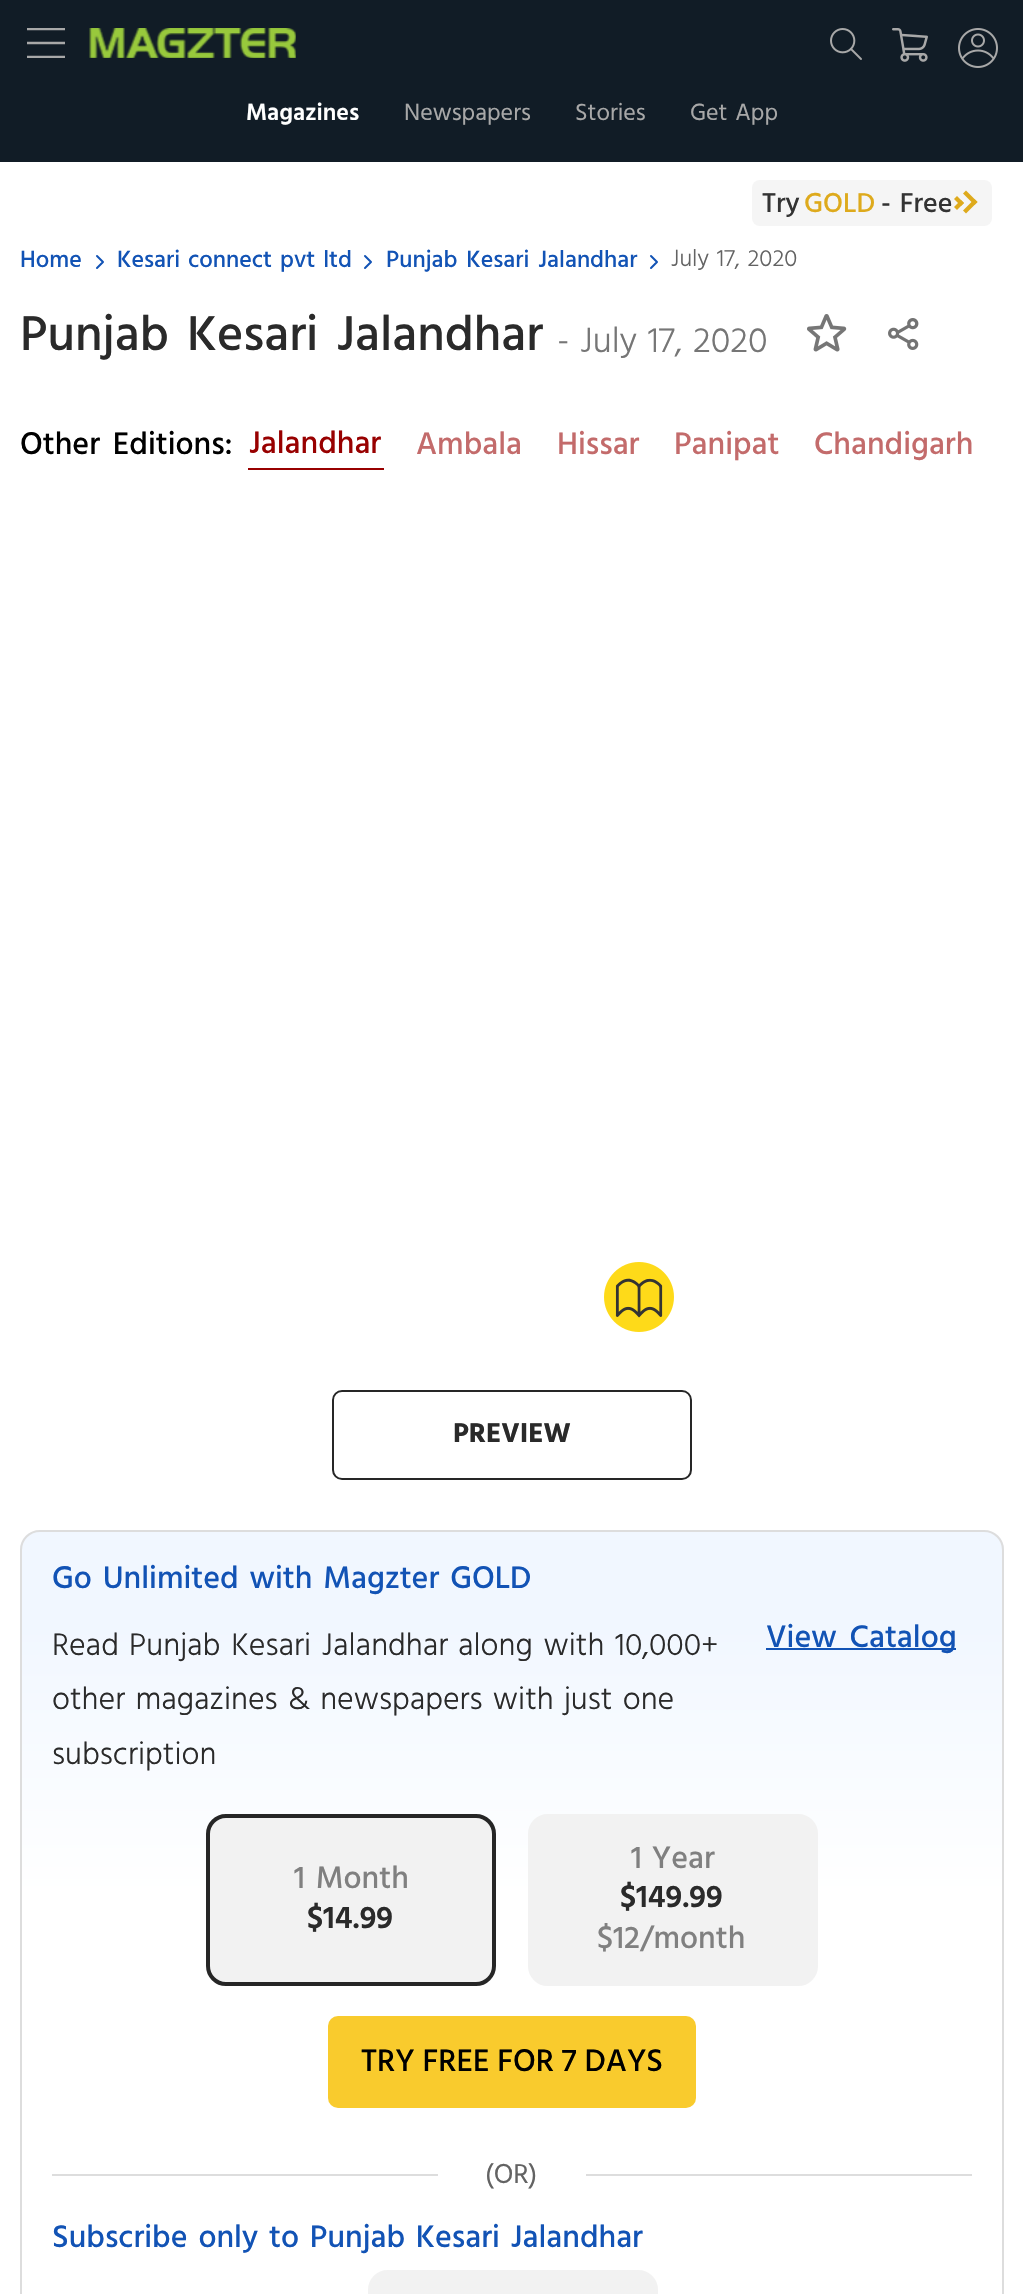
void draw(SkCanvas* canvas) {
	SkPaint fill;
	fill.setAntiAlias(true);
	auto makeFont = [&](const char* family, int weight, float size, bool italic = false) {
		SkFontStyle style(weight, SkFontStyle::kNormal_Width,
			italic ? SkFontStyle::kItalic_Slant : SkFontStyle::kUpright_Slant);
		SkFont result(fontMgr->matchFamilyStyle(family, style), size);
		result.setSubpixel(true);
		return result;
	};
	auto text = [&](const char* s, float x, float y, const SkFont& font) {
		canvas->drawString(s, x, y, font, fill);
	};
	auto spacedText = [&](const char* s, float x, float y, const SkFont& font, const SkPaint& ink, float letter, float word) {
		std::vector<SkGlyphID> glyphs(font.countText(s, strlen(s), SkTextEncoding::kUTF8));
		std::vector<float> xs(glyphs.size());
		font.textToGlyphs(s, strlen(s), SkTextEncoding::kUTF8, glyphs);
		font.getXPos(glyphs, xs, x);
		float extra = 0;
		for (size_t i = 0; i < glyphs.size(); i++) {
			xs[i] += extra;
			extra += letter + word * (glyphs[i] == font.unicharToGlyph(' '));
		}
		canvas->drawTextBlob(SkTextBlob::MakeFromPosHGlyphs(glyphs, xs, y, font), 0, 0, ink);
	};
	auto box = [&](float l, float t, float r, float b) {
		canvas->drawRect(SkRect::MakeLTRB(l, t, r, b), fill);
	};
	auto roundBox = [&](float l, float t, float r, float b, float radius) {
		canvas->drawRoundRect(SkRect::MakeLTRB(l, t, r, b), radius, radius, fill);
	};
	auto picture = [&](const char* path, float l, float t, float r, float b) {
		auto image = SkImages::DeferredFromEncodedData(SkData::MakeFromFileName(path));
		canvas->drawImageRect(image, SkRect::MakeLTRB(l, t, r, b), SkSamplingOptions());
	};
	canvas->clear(0xFFFFFFFF);
	fill.setColor(0xFF111C26);
	box(0, 0, 1023, 162);
	canvas->save();
	canvas->clipRect(SkRect::MakeLTRB(26, 28, 66, 58));
	fill.setStyle(SkPaint::kStroke_Style);
	fill.setStrokeWidth(2.5f);
	fill.setColor(0xFFA8A8A8);
	canvas->drawPath(SkPathBuilder().moveTo(27, 29).lineTo(65, 29).detach(), fill);
	canvas->restore();
	canvas->drawPath(SkPathBuilder().moveTo(27, 43).lineTo(65, 43).detach(), fill);
	canvas->save();
	canvas->clipRect(SkRect::MakeLTRB(26, 28, 66, 58));
	canvas->drawPath(SkPathBuilder().moveTo(27, 57).lineTo(65, 57).detach(), fill);
	canvas->restore();
	picture("image0.png", 89, 28, 296, 58);
	picture("image1.png", 830, 28, 862, 60);
	picture("image2.png", 892, 28, 928, 62);
	picture("image3.png", 958, 28, 998, 68);
	fill.setStyle(SkPaint::kFill_Style);
	fill.setColor(0xFFF5F5F5);
	roundBox(752, 180, 992, 226, 8);
	fill.setColor(0xFFDEAA1C);
	canvas->drawPath(SkPathBuilder().moveTo(964, 203).lineTo(957, 210).lineTo(954, 207).lineTo(961, 200).close().detach(), fill);
	canvas->drawPath(SkPathBuilder().moveTo(964, 203).lineTo(961, 206).lineTo(954, 199).lineTo(957, 196).close().detach(), fill);
	canvas->drawPath(SkPathBuilder().moveTo(977.5f, 202).lineTo(966, 213.5f).lineTo(963, 210.5f).lineTo(974.5f, 199).close().detach(), fill);
	canvas->drawPath(SkPathBuilder().moveTo(977.5f, 202).lineTo(974.5f, 205).lineTo(963, 193.5f).lineTo(966, 190.5f).close().detach(), fill);
	fill.setStyle(SkPaint::kStroke_Style);
	fill.setStrokeWidth(2);
	fill.setStrokeCap(SkPaint::kRound_Cap);
	fill.setStrokeJoin(SkPaint::kRound_Join);
	fill.setColor(0xFF1253B5);
	canvas->drawPath(SkPathBuilder().moveTo(97, 268).lineTo(103, 262).lineTo(97, 256).detach(), fill);
	canvas->drawPath(SkPathBuilder().moveTo(365, 268).lineTo(371, 262).lineTo(365, 256).detach(), fill);
	canvas->drawPath(SkPathBuilder().moveTo(651, 268).lineTo(657, 262).lineTo(651, 256).detach(), fill);
	picture("image4.png", 807, 314, 847, 352);
	picture("image5.png", 888, 318, 919, 350);
	fill.setStyle(SkPaint::kFill_Style);
	fill.setColor(0xFF980000);
	box(248, 468, 384, 470);
	picture("image6.png", 604, 1262, 674, 1332);
	fill.setStyle(SkPaint::kStroke_Style);
	fill.setStrokeCap(SkPaint::kButt_Cap);
	fill.setStrokeJoin(SkPaint::kMiter_Join);
	fill.setColor(0xFF262626);
	canvas->drawRoundRect(SkRect::MakeLTRB(333, 1391, 691, 1479), 9, 9, fill);
	canvas->save();
	canvas->clipPath(SkPathBuilder().moveTo(40, 1530).lineTo(984, 1530).cubicTo(995, 1530, 1004, 1539, 1004, 1550).lineTo(1004, 2554).cubicTo(1004, 2565, 995, 2574, 984, 2574).lineTo(40, 2574).cubicTo(29, 2574, 20, 2565, 20, 2554).lineTo(20, 1550).cubicTo(20, 1539, 29, 1530, 40, 1530).close().detach(), true);
	fill.setStyle(SkPaint::kFill_Style);
	{
		const SkColor colors[] = {0xFFF1F7FF, 0xFFFFFFFF};
		const float stops[] = {0.09f, 0.35f};
		const SkPoint ends[] = {{512, 1532}, {512, 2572}};
		fill.setShader(SkGradientShader::MakeLinear(ends, colors, stops, 2, SkTileMode::kClamp));
		fill.setAlpha(255);
	}
	box(20, 1532, 1004, 2294);
	canvas->restore();
	fill.setStyle(SkPaint::kStroke_Style);
	fill.setShader(nullptr);
	fill.setColor(0xFFDDDDDD);
	canvas->drawRoundRect(SkRect::MakeLTRB(21, 1531, 1003, 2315), 19, 19, fill);
	fill.setStyle(SkPaint::kFill_Style);
	fill.setColor(0xFF1253B5);
	box(766, 1648, 956, 1650);
	fill.setColor(0xFFF2F2F2);
	canvas->drawRoundRect(SkRect::MakeLTRB(208, 1816, 494, 1984), 18, 18, fill);
	fill.setStyle(SkPaint::kStroke_Style);
	fill.setStrokeWidth(4);
	fill.setColor(0xFF262626);
	canvas->drawRoundRect(SkRect::MakeLTRB(208, 1816, 494, 1984), 18, 18, fill);
	fill.setStyle(SkPaint::kFill_Style);
	fill.setColor(0xFFF2F2F2);
	canvas->drawRoundRect(SkRect::MakeLTRB(529, 1815, 817, 1985), 19, 19, fill);
	fill.setStyle(SkPaint::kStroke_Style);
	fill.setStrokeWidth(2);
	canvas->drawRoundRect(SkRect::MakeLTRB(529, 1815, 817, 1985), 19, 19, fill);
	fill.setStyle(SkPaint::kFill_Style);
	fill.setColor(0xFFF9CB2D);
	roundBox(328, 2016, 696, 2108, 10);
	fill.setColor(0xFFDDDDDD);
	box(52, 2174, 438, 2176);
	box(586, 2174, 972, 2176);
	fill.setColor(0xFFF2F2F2);
	canvas->drawRoundRect(SkRect::MakeLTRB(369, 2271, 657, 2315), 19, 19, fill);
	fill.setStyle(SkPaint::kStroke_Style);
	canvas->drawRoundRect(SkRect::MakeLTRB(369, 2271, 657, 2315), 19, 19, fill);
	auto font1 = makeFont("Hind", 600, 24);
	fill.setStyle(SkPaint::kFill_Style);
	fill.setColor(0xFFFFFFFF);
	text("Magazines", 246, 120, font1);
	auto font2 = makeFont("Hind", 400, 24);
	fill.setColor(0xFFA8A8A8);
	text("Newspapers", 404, 120, font2);
	text("Stories", 575, 120, font2);
	spacedText("Get App", 690, 120, font2, fill, 0, 2);
	auto font3 = makeFont("Hind", 500, 28);
	fill.setColor(0xFF333333);
	text("Try", 762, 212, font3);
	fill.setColor(0xFFDEAA1C);
	text("GOLD", 804, 212, font3);
	fill.setColor(0xFF333333);
	spacedText("- Free", 881, 212, font3, fill, 0, 2);
	auto font4 = makeFont("Hind", 500, 24);
	fill.setColor(0xFF1253B5);
	text("Home", 20, 267, font4);
	spacedText("Kesari connect pvt ltd", 117, 267, font4, fill, 0, 2);
	spacedText("Punjab Kesari Jalandhar", 386, 267, font4, fill, 0, 3);
	auto font5 = makeFont("Hind", 300, 24);
	fill.setColor(0xFF636363);
	spacedText("July 17, 2020", 671, 266, font5, fill, 0, 2);
	auto font6 = makeFont("Hind", 500, 50);
	fill.setColor(0xFF2A2A2A);
	spacedText("Punjab Kesari Jalandhar", 20, 350, font6, fill, 0, 6);
	auto font7 = makeFont("Hind", 300, 36);
	fill.setColor(0xFF767676);
	spacedText("- July 17, 2020", 557, 352, font7, fill, 0, 2);
	auto font8 = makeFont("Hind", 500, 32);
	fill.setColor(0xFF000000);
	spacedText("Other Editions:", 20, 454, font8, fill, 0, 5);
	fill.setColor(0xFF980000);
	text("Jalandhar", 249, 453, font8);
	fill.setColor(0xFFC36B6B);
	text("Ambala", 416, 454, font8);
	text("Hissar", 557, 454, font8);
	text("Panipat", 674, 454, font8);
	text("Chandigarh", 814, 454, font8);
	auto font9 = makeFont("Hind", 700, 28);
	fill.setColor(0xFF2A2A2A);
	text("PREVIEW", 453, 1442, font9);
	fill.setColor(0xFF1253B5);
	spacedText("Go Unlimited with Magzter GOLD", 52, 1588, font8, fill, 0, 3);
	auto font10 = makeFont("Hind", 300, 32);
	fill.setColor(0xFF2A2A2A);
	text("Read", 52, 1655, font10);
	spacedText("Punjab Kesari Jalandhar", 129, 1655, font10, fill, 0, 3);
	spacedText("along with 10,000+", 458, 1655, font10, fill, 0, 3);
	spacedText("other magazines & newspapers with just one", 52, 1709, font10, fill, 0, 2.5f);
	text("subscription", 52, 1764, font10);
	fill.setColor(0xFF1253B5);
	spacedText("View Catalog", 766, 1647, font8, fill, 0, 5);
	fill.setColor(0xFF808080);
	spacedText("1 Month", 294, 1888, font8, fill, 0, 3);
	auto font11 = makeFont("Hind", 600, 32);
	fill.setColor(0xFF2A2A2A);
	text("$14.99", 307, 1928, font11);
	fill.setColor(0xFF808080);
	spacedText("1 Year", 631, 1868, font8, fill, 0, 2);
	fill.setColor(0xFF2A2A2A);
	text("$149.99", 620, 1907, font11);
	fill.setColor(0xFF808080);
	text("$12/month", 597, 1948, font8);
	fill.setColor(0xFF000000);
	text("TRY FREE FOR 7 DAYS", 361, 2071, font8);
	auto font12 = makeFont("Hind", 400, 28);
	fill.setColor(0xFF636363);
	text("(OR)", 485, 2183, font12);
	fill.setColor(0xFF1253B5);
	spacedText("Subscribe only to Punjab Kesari Jalandhar", 52, 2247, font8, fill, 0, 3);
}
